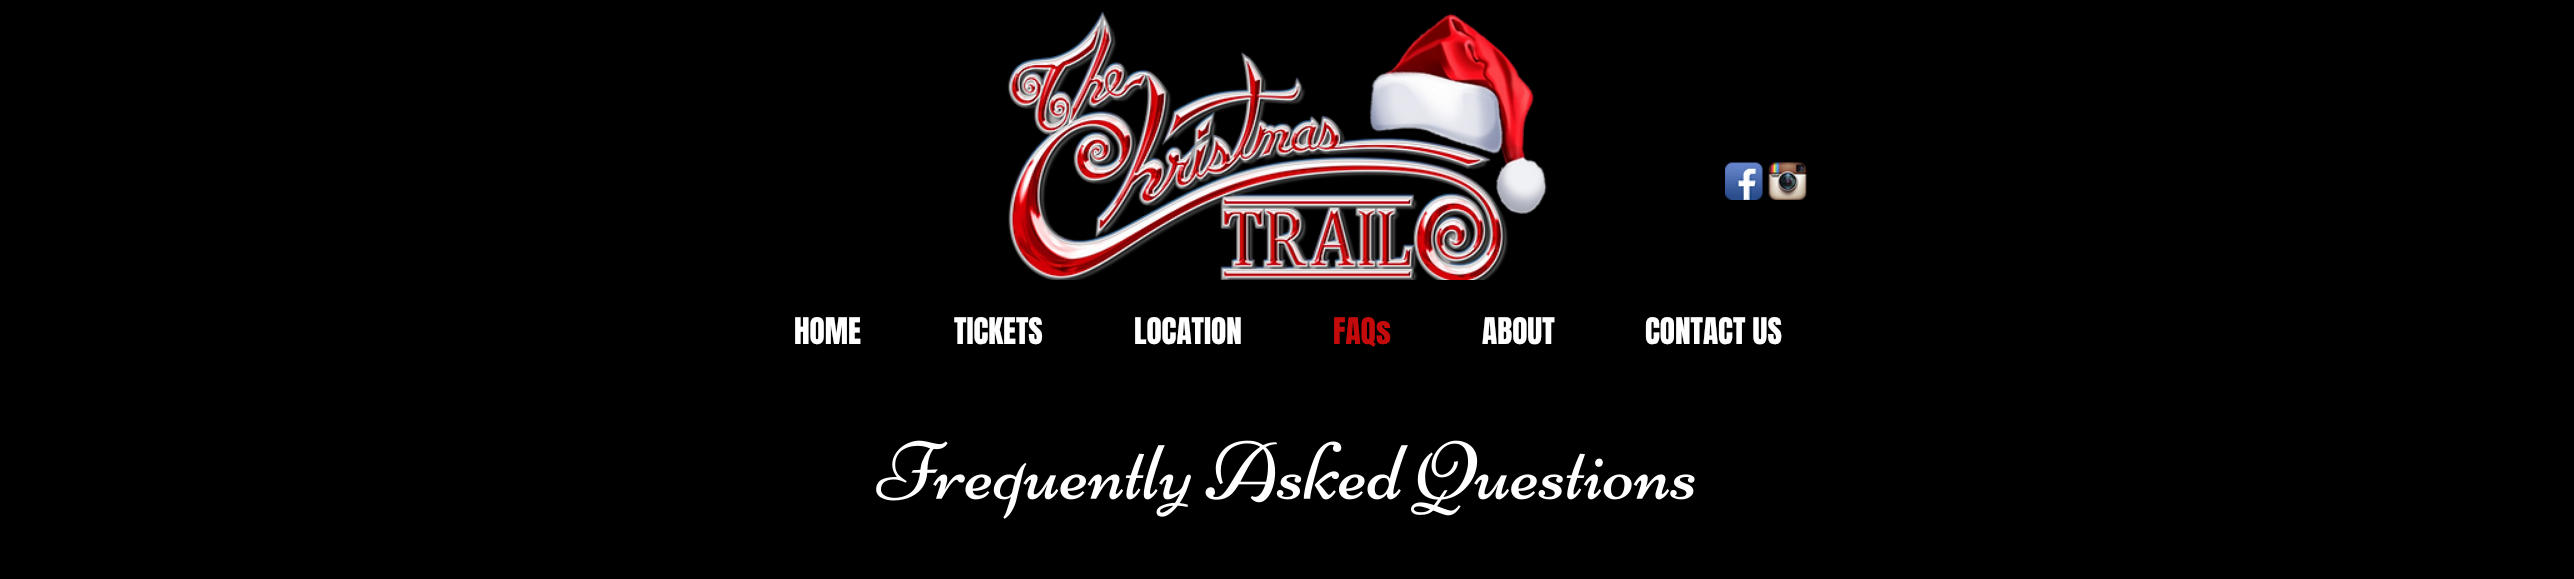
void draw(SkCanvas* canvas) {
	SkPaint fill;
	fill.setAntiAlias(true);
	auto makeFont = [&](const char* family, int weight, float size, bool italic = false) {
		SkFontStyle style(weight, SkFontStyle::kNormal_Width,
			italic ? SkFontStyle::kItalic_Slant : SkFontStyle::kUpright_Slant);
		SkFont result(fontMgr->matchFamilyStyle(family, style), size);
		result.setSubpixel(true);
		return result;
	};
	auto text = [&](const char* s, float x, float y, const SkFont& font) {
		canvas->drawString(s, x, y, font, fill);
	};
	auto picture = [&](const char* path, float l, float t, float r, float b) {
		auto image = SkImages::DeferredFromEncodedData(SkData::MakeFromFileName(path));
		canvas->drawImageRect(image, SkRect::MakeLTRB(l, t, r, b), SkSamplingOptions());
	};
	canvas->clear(0xFF000000);
	picture("image0.png", 1007, 11, 1547, 280);
	picture("image1.png", 1725, 162, 1763, 200);
	picture("image2.png", 1768, 162, 1807, 200);
	picture("image3.png", 876, 440, 1695, 519);
	auto font1 = makeFont("Anton", 400, 31.25f);
	fill.setColor(0xFFFFFFFF);
	text("HOME", 794, 344, font1);
	text("TICKETS", 954, 344, font1);
	text("LOCATION", 1134, 344, font1);
	fill.setColor(0xFFC40A0A);
	text("FAQs", 1333, 344, font1);
	fill.setColor(0xFFFFFFFF);
	text("ABOUT", 1482, 344, font1);
	text("CONTACT US", 1645, 344, font1);
}
